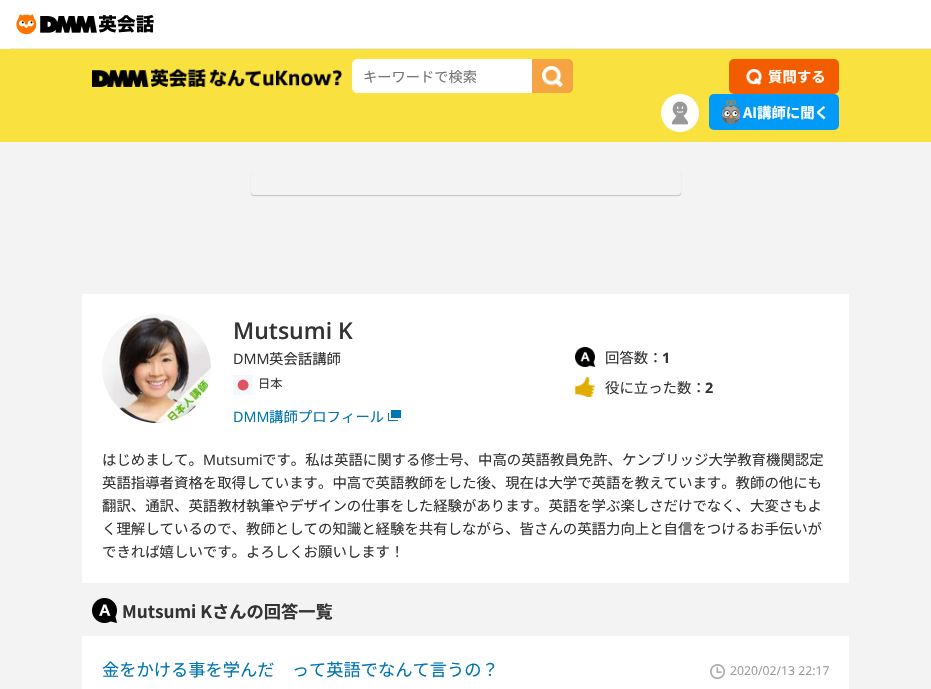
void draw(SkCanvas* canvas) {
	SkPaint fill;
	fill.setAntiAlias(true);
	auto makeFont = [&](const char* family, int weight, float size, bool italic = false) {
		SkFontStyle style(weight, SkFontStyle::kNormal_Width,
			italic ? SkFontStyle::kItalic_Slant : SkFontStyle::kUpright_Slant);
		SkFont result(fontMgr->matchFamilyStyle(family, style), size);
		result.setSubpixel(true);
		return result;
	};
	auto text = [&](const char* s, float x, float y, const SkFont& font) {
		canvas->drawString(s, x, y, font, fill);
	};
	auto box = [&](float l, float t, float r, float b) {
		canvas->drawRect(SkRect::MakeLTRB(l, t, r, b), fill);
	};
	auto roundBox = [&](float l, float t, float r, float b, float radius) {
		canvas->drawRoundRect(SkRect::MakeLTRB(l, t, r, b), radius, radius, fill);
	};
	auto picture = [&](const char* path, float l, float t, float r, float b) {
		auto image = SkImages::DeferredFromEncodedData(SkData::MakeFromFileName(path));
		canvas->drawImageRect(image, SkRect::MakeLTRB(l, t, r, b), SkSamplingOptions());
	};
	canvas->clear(0xFFFFFFFF);
	fill.setColor(0xFFE9EBEF);
	box(10, 48, 931, 49);
	picture("image0.png", 16, 14, 154, 35);
	fill.setColor(0xFFF3F3F3);
	box(0, 142, 931, 689);
	fill.setColor(0xFFF9E13F);
	box(0, 49, 931, 142);
	picture("image1.png", 92, 69, 342, 87);
	fill.setColor(0xFFFFFFFF);
	canvas->drawPath(SkPathBuilder().moveTo(357, 59.5f).lineTo(531.5f, 59.5f).lineTo(531.5f, 92.5f).lineTo(357, 92.5f).cubicTo(354.5f, 92.5f, 352.5f, 90.5f, 352.5f, 88).lineTo(352.5f, 64).cubicTo(352.5f, 61.5f, 354.5f, 59.5f, 357, 59.5f).close().detach(), fill);
	fill.setStyle(SkPaint::kStroke_Style);
	fill.setStrokeWidth(1);
	canvas->drawPath(SkPathBuilder().moveTo(357, 59.5f).lineTo(531.5f, 59.5f).lineTo(531.5f, 92.5f).lineTo(357, 92.5f).cubicTo(354.5f, 92.5f, 352.5f, 90.5f, 352.5f, 88).lineTo(352.5f, 64).cubicTo(352.5f, 61.5f, 354.5f, 59.5f, 357, 59.5f).close().detach(), fill);
	fill.setStyle(SkPaint::kFill_Style);
	fill.setColor(0xFFF6A443);
	canvas->drawPath(SkPathBuilder().moveTo(532, 59).lineTo(568, 59).cubicTo(571, 59, 573, 61, 573, 64).lineTo(573, 88).cubicTo(573, 91, 571, 93, 568, 93).lineTo(532, 93).close().detach(), fill);
	picture("image2.png", 542, 66, 563, 87);
	fill.setColor(0xFFF45C00);
	roundBox(729, 59, 839, 94, 5);
	picture("image3.png", 746, 69, 762, 85);
	picture("image4.png", 661, 94, 699, 132);
	fill.setColor(0xFF029AF7);
	roundBox(709, 94, 839, 130, 5);
	picture("image5.png", 722, 100, 740, 124);
	canvas->save();
	canvas->clipPath(SkPathBuilder(SkPathFillType::kEvenOdd).moveTo(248, 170).lineTo(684, 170).lineTo(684, 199).lineTo(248, 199).close().moveTo(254, 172).lineTo(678, 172).cubicTo(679.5f, 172, 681, 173.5f, 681, 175).lineTo(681, 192).cubicTo(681, 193.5f, 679.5f, 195, 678, 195).lineTo(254, 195).cubicTo(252.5f, 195, 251, 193.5f, 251, 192).lineTo(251, 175).cubicTo(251, 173.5f, 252.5f, 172, 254, 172).close().detach(), true);
	fill.setColor(0x33000000);
	fill.setMaskFilter(SkMaskFilter::MakeBlur(kNormal_SkBlurStyle, 0.5f));
	canvas->drawRoundRect(SkRect::MakeLTRB(251, 173, 681, 196), 3, 3, fill);
	fill.setMaskFilter(nullptr);
	canvas->restore();
	fill.setColor(0xFFFFFFFF);
	box(82, 294, 849, 583);
	picture("image6.png", 102, 314, 211, 423);
	picture("image7.png", 233, 375, 253, 395);
	fill.setColor(0xFF0075B1);
	canvas->drawPath(SkPathBuilder().moveTo(388, 413).lineTo(388, 421).lineTo(398, 421).lineTo(398, 420).lineTo(389, 420).lineTo(389, 413).close().detach(), fill);
	box(391, 410, 401, 418);
	picture("image8.png", 575, 347, 595, 367);
	picture("image9.png", 575, 377, 595, 397);
	picture("image10.png", 92, 598, 117, 623);
	fill.setColor(0xFFFFFFFF);
	box(82, 636, 849, 689);
	picture("image11.png", 710, 664, 725, 679);
	auto font1 = makeFont("Noto Sans JP", 400, 14.25f);
	fill.setColor(0xFF757575);
	text("キーワードで検索", 363, 82, font1);
	auto font2 = makeFont("Noto Sans JP", 700, 14.4f);
	fill.setColor(0xFFFFFFFF);
	text("質問する", 768, 82, font2);
	text("AI講師に聞く", 743, 118, font2);
	auto font3 = makeFont("Open Sans", 600, 23);
	fill.setColor(0xFF333333);
	text("Mutsumi K", 233, 339, font3);
	auto font4 = makeFont("Open Sans", 400, 14.4f);
	text("DMM", 233, 364, font4);
	auto font5 = makeFont("Noto Sans JP", 400, 14.4f);
	text("英会話講師", 269, 364, font5);
	auto font6 = makeFont("Noto Sans JP", 400, 12.25f);
	text("日本", 258, 388, font6);
	fill.setColor(0xFF0075B1);
	text("DMM", 233, 422, font4);
	text("講師プロフィール", 269, 422, font5);
	fill.setColor(0xFF333333);
	text("回答数：", 605, 363, font5);
	auto font7 = makeFont("Open Sans", 700, 14.4f);
	text("1", 662, 363, font7);
	text("役に立った数：", 605, 393, font5);
	text("2", 705, 393, font7);
	text("はじめまして。", 102, 465, font5);
	text("Mutsumi", 203, 465, font4);
	text("です。私は英語に関する修士号、中高の英語教員免許、ケンブリッジ大学教育機関認定", 262, 465, font5);
	text("英語指導者資格を取得しています。中高で英語教師をした後、現在は大学で英語を教えています。教師の他にも", 102, 488, font5);
	text("翻訳、通訳、英語教材執筆やデザインの仕事をした経験があります。英語を学ぶ楽しさだけでなく、大変さもよ", 102, 511, font5);
	text("く理解しているので、教師としての知識と経験を共有しながら、皆さんの英語力向上と自信をつけるお手伝いが", 102, 534, font5);
	text("できれば嬉しいです。よろしくお願いします！", 102, 557, font5);
	auto font8 = makeFont("Noto Sans JP", 700, 17.25f);
	text("Mutsumi Kさんの回答一覧", 122, 618, font8);
	auto font9 = makeFont("Noto Sans JP", 400, 17.25f);
	fill.setColor(0xFF0075B1);
	text("金をかける事を学んだ　って英語でなんて言うの？", 102, 676, font9);
	auto font10 = makeFont("Open Sans", 400, 12.25f);
	fill.setColor(0xFF999999);
	text("2020/02/13 22:17", 730, 675, font10);
}
